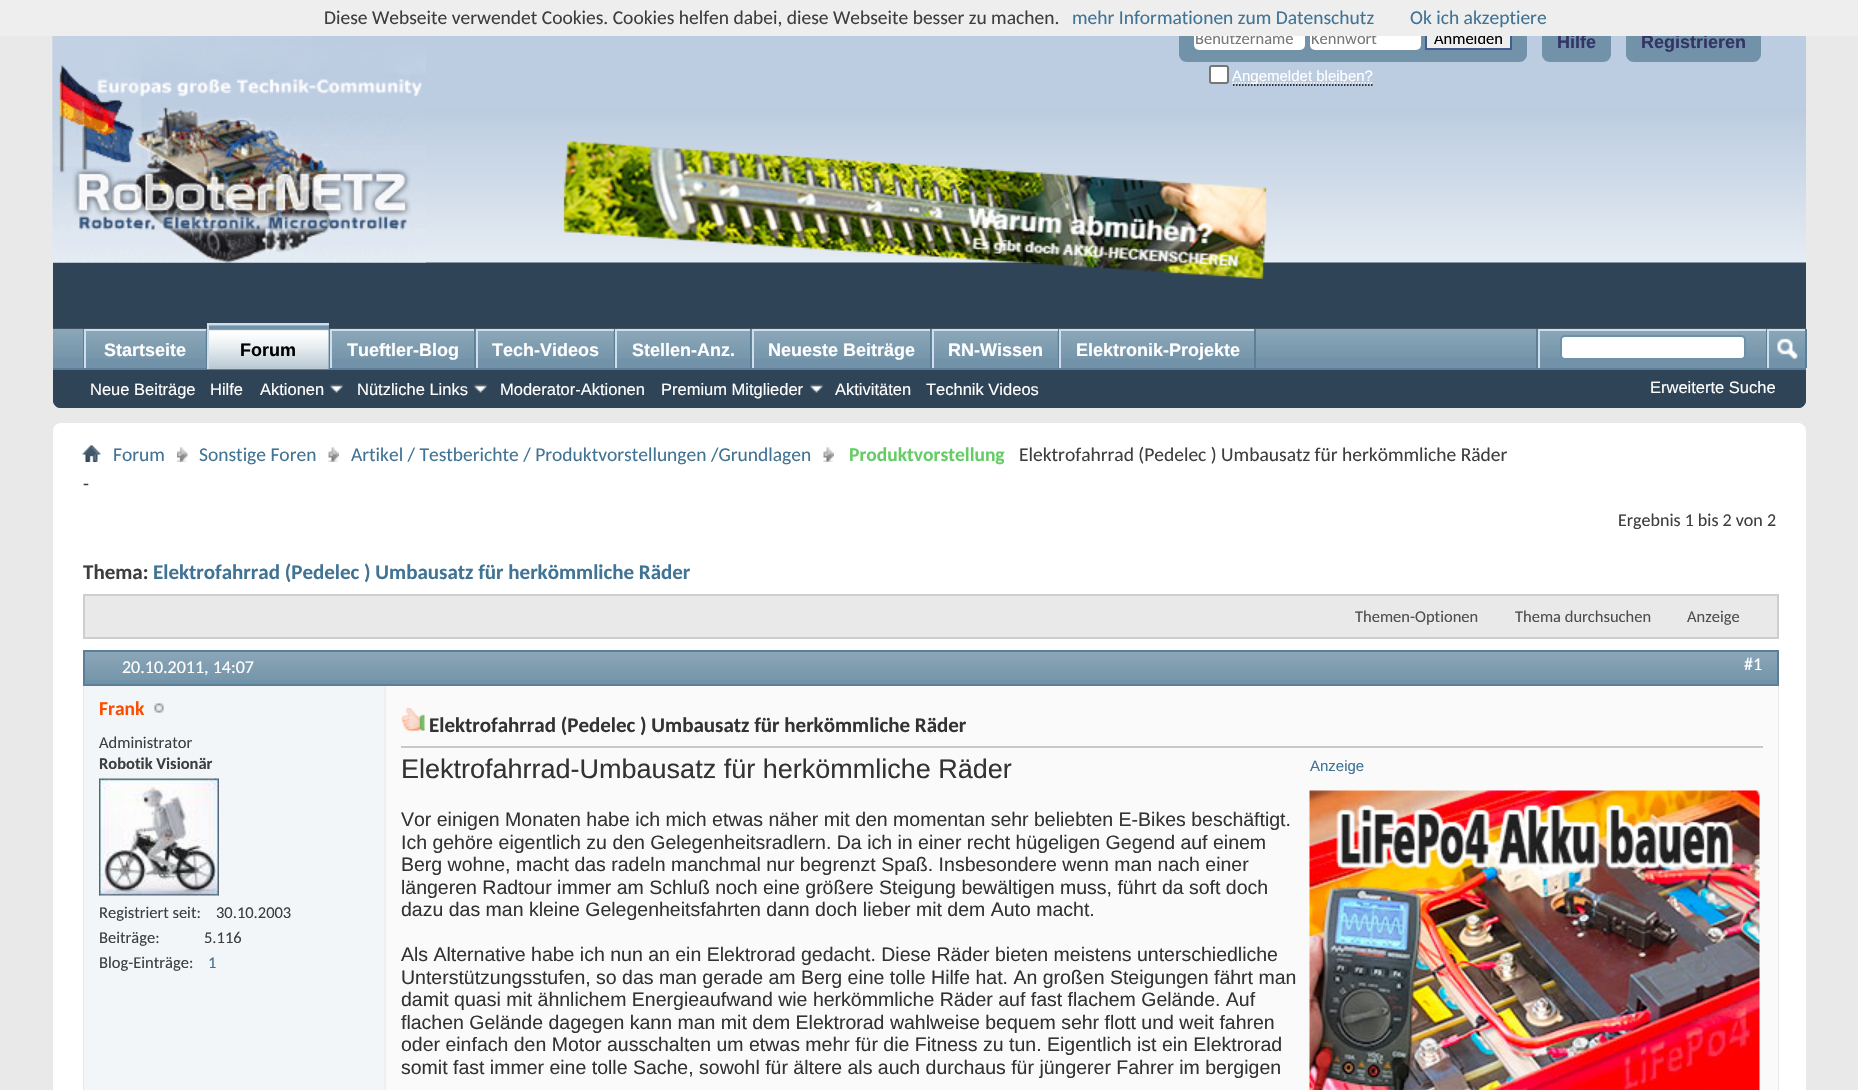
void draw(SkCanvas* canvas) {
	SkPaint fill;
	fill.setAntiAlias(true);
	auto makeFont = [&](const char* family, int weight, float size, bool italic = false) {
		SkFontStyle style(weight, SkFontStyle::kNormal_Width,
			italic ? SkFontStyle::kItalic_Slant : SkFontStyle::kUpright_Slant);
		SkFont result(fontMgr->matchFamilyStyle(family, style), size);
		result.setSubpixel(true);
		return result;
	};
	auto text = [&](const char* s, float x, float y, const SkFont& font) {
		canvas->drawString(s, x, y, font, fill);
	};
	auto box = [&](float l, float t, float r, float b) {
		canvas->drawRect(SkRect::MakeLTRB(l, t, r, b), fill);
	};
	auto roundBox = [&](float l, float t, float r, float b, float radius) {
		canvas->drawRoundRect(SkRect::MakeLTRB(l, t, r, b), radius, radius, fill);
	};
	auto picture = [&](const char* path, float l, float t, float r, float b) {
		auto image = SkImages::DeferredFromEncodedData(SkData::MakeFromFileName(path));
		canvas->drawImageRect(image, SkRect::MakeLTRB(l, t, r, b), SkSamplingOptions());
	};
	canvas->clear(0xFFE9E9E9);
	fill.setColor(0xFF2F4456);
	canvas->drawPath(SkPathBuilder().moveTo(53, 23).lineTo(1806, 23).lineTo(1806, 400).cubicTo(1806, 404.5f, 1802.5f, 408, 1798, 408).lineTo(61, 408).cubicTo(56.5f, 408, 53, 404.5f, 53, 400).close().detach(), fill);
	picture("image0.png", 52, 36, 1806, 263);
	picture("image1.png", 52, 36, 426, 263);
	picture("image2.png", 563, 141, 1267, 279);
	fill.setColor(0xFF7192A8);
	canvas->drawPath(SkPathBuilder().moveTo(1179, 23).lineTo(1527, 23).lineTo(1527, 54).cubicTo(1527, 58.5f, 1523.5f, 62, 1519, 62).lineTo(1187, 62).cubicTo(1182.5f, 62, 1179, 58.5f, 1179, 54).close().detach(), fill);
	fill.setColor(0xFFFFFFFF);
	roundBox(1194, 27, 1305, 50, 5);
	roundBox(1310, 27, 1421, 50, 5);
	fill.setColor(0xFFEFEFEF);
	box(1427, 36, 1510, 48);
	fill.setStyle(SkPaint::kStroke_Style);
	fill.setStrokeWidth(2);
	fill.setColor(0xFF415D8D);
	canvas->drawRect(SkRect::MakeLTRB(1426, 28, 1511, 49), fill);
	fill.setStyle(SkPaint::kFill_Style);
	fill.setColor(0xFFFFFFFF);
	canvas->drawRoundRect(SkRect::MakeLTRB(1210, 66, 1228, 83), 2, 2, fill);
	fill.setStyle(SkPaint::kStroke_Style);
	fill.setColor(0xFF767676);
	canvas->drawRoundRect(SkRect::MakeLTRB(1210, 66, 1228, 83), 2, 2, fill);
	fill.setStrokeWidth(1.5f);
	fill.setColor(0xFF000000);
	fill.setPathEffect(SkDashPathEffect::Make({{1.5f, 1.5f}}, 0));
	canvas->drawPath(SkPathBuilder().moveTo(1233, 85).lineTo(1374, 85).detach(), fill);
	fill.setPathEffect(nullptr);
	fill.setColor(0xFFFFFFFF);
	fill.setPathEffect(SkDashPathEffect::Make({{1.5f, 1.5f}}, 0));
	canvas->drawPath(SkPathBuilder().moveTo(1232.5f, 83).lineTo(1373.5f, 83).detach(), fill);
	fill.setPathEffect(nullptr);
	fill.setStyle(SkPaint::kFill_Style);
	fill.setColor(0xFF7192A8);
	canvas->drawPath(SkPathBuilder().moveTo(1542, 23).lineTo(1611, 23).lineTo(1611, 54).cubicTo(1611, 58.5f, 1607.5f, 62, 1603, 62).lineTo(1550, 62).cubicTo(1545.5f, 62, 1542, 58.5f, 1542, 54).close().detach(), fill);
	canvas->drawPath(SkPathBuilder().moveTo(1626, 23).lineTo(1761, 23).lineTo(1761, 54).cubicTo(1761, 58.5f, 1757.5f, 62, 1753, 62).lineTo(1634, 62).cubicTo(1629.5f, 62, 1626, 58.5f, 1626, 54).close().detach(), fill);
	fill.setColor(0xFF2F4456);
	canvas->drawPath(SkPathBuilder().moveTo(53, 329).lineTo(1806, 329).lineTo(1806, 400).cubicTo(1806, 404.5f, 1802.5f, 408, 1798, 408).lineTo(61, 408).cubicTo(56.5f, 408, 53, 404.5f, 53, 400).close().detach(), fill);
	fill.setColor(0xFF7192A8);
	box(53, 329, 1805, 368);
	picture("image3.png", 53, 328, 1806, 358);
	fill.setColor(0xFF5A7F97);
	box(206, 329, 207, 369);
	box(83, 329, 84, 369);
	fill.setColor(0xFF7192A8);
	box(86, 331, 206, 358);
	picture("image4.png", 86, 331, 206, 359);
	fill.setColor(0xFFCEDFEB);
	box(84, 329, 206, 331);
	box(84, 329, 86, 369);
	fill.setColor(0xFF5A7F97);
	box(329, 329, 330, 368);
	box(474, 329, 476, 369);
	fill.setColor(0xFFCEDFEB);
	box(330, 329, 474, 331);
	box(330, 329, 332, 369);
	fill.setColor(0xFF5A7F97);
	box(614, 329, 615, 369);
	fill.setColor(0xFF7192A8);
	box(478, 331, 614, 358);
	picture("image7.png", 475, 330, 614, 359);
	fill.setColor(0xFFCEDFEB);
	box(476, 329, 614, 331);
	box(476, 329, 478, 369);
	fill.setColor(0xFF5A7F97);
	box(750, 329, 752, 369);
	fill.setColor(0xFFCEDFEB);
	box(615, 329, 750, 331);
	box(615, 329, 617, 369);
	fill.setColor(0xFF5A7F97);
	box(930, 329, 932, 369);
	fill.setColor(0xFF7192A8);
	box(754, 331, 930, 358);
	picture("image9.png", 751, 330, 930, 359);
	fill.setColor(0xFFCEDFEB);
	box(752, 329, 930, 331);
	box(752, 329, 754, 369);
	fill.setColor(0xFF5A7F97);
	box(1058, 329, 1059, 369);
	fill.setColor(0xFF7192A8);
	box(934, 331, 1058, 358);
	picture("image10.png", 931, 330, 1058, 359);
	fill.setColor(0xFFCEDFEB);
	box(932, 329, 1058, 331);
	box(932, 329, 934, 369);
	fill.setColor(0xFF5A7F97);
	box(1254, 329, 1256, 369);
	fill.setColor(0xFFCEDFEB);
	box(1059, 329, 1254, 331);
	box(1059, 329, 1061, 369);
	fill.setColor(0xFF5A7F97);
	box(53, 368, 1806, 370);
	fill.setColor(0xFF7192A8);
	box(209, 325, 329, 369);
	picture("image5.png", 209, 325, 329, 369);
	fill.setColor(0xFFCEDFEB);
	box(207, 323, 329, 325);
	box(207, 323, 209, 369);
	fill.setColor(0xFF7192A8);
	box(332, 331, 474, 358);
	picture("image6.png", 332, 331, 474, 359);
	box(617, 331, 750, 358);
	picture("image8.png", 617, 331, 750, 359);
	box(1061, 331, 1254, 358);
	picture("image11.png", 1061, 331, 1254, 359);
	picture("image12.png", 329, 384, 344, 393);
	picture("image12.png", 473, 384, 488, 393);
	picture("image13.png", 809, 384, 824, 393);
	fill.setColor(0xFF5A7F97);
	box(1536, 329, 1538, 368);
	fill.setColor(0xFFCEDFEB);
	box(1538, 329, 1766, 331);
	box(1538, 329, 1540, 368);
	fill.setColor(0xFFFFFFFF);
	canvas->drawRoundRect(SkRect::MakeLTRB(1561, 336, 1745, 359), 4, 4, fill);
	fill.setStyle(SkPaint::kStroke_Style);
	fill.setStrokeWidth(2);
	fill.setColor(0xFF6B91AB);
	canvas->drawRoundRect(SkRect::MakeLTRB(1561, 336, 1745, 359), 4, 4, fill);
	fill.setStyle(SkPaint::kFill_Style);
	fill.setColor(0xFF5A7F97);
	box(1805, 329, 1807, 368);
	box(1766, 329, 1767, 368);
	fill.setColor(0xFFCEDFEB);
	box(1767, 329, 1805, 331);
	box(1767, 329, 1769, 368);
	picture("image14.png", 1777, 338, 1798, 360);
	fill.setColor(0xFFFFFFFF);
	roundBox(53, 423, 1806, 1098, 8);
	picture("image15.png", 82, 445, 101, 462);
	picture("image16.png", 177, 446, 188, 462);
	picture("image17.png", 328, 446, 339, 462);
	picture("image17.png", 823, 446, 834, 462);
	fill.setColor(0xFFE9E9E9);
	canvas->drawRect(SkRect::MakeLTRB(84, 595, 1778, 638), fill);
	fill.setStyle(SkPaint::kStroke_Style);
	fill.setColor(0xFFCECECE);
	canvas->drawRect(SkRect::MakeLTRB(84, 595, 1778, 638), fill);
	fill.setColor(0xFFE9E9E9);
	canvas->drawRect(SkRect::MakeLTRB(84, 651, 1778, 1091), fill);
	fill.setStyle(SkPaint::kFill_Style);
	fill.setColor(0xFF7192A8);
	box(85, 652, 1777, 684);
	picture("image18.png", 85, 652, 1777, 680);
	fill.setStyle(SkPaint::kStroke_Style);
	fill.setColor(0xFF5A7F97);
	canvas->drawRect(SkRect::MakeLTRB(84, 651, 1778, 685), fill);
	fill.setStyle(SkPaint::kFill_Style);
	fill.setColor(0xFFF2F6F8);
	box(84, 686, 384, 1090);
	picture("image19.png", 154, 703, 164, 713);
	picture("image20.png", 99, 778, 219, 896);
	fill.setColor(0xFFFAFAFA);
	box(386, 686, 1778, 1090);
	fill.setColor(0xFFEFEFEF);
	box(384, 686, 386, 1090);
	fill.setColor(0xFFC8C8C8);
	box(401, 746, 1763, 748);
	picture("image21.png", 401, 708, 425, 732);
	picture("image22.png", 1309, 790, 1760, 1090);
	auto font1 = makeFont("Carlito", 400, 16.5f);
	fill.setColor(0xFF777777);
	text("Benutzername", 1195, 44, font1);
	text("Kennwort", 1311, 44, font1);
	fill.setColor(0xFF000000);
	text("Anmelden", 1434, 44, font1);
	auto font2 = makeFont("Liberation Sans", 400, 15);
	fill.setColor(0xFFFFFFFF);
	text("Angemeldet bleiben?", 1232, 81, font2);
	auto font3 = makeFont("Liberation Sans", 700, 18);
	fill.setColor(0xFF333366);
	text("Hilfe", 1557, 48, font3);
	text("Registrieren", 1641, 48, font3);
	fill.setColor(0xFFEEEEEE);
	box(0, 0, 1858, 36);
	auto font4 = makeFont("Carlito", 400, 19.5f);
	fill.setColor(0xFF417394);
	text("Ok ich akzeptiere", 1410, 24, font4);
	text("mehr Informationen zum Datenschutz", 1072, 24, font4);
	fill.setColor(0xFF3E3E3E);
	text("Diese Webseite verwendet Cookies. Cookies helfen dabei, diese Webseite besser zu machen.", 324, 24, font4);
	fill.setColor(0xFFFFFFFF);
	text("Startseite", 104, 356, font3);
	fill.setColor(0xFF000000);
	text("Forum", 240, 356, font3);
	fill.setColor(0xFFFFFFFF);
	text("Tueftler-Blog", 347, 356, font3);
	text("Tech-Videos", 492, 356, font3);
	text("Stellen-Anz.", 632, 356, font3);
	text("Neueste Beiträge", 768, 356, font3);
	text("RN-Wissen", 948, 356, font3);
	text("Elektronik-Projekte", 1076, 356, font3);
	auto font5 = makeFont("Liberation Sans", 400, 16.5f);
	text("Neue Beiträge", 90, 395, font5);
	text("Hilfe", 210, 395, font5);
	text("Aktionen", 260, 395, font5);
	text("Nützliche Links", 357, 395, font5);
	text("Moderator-Aktionen", 500, 395, font5);
	text("Premium Mitglieder", 661, 395, font5);
	text("Aktivitäten", 835, 395, font5);
	text("Technik Videos", 926, 395, font5);
	text("Erweiterte Suche", 1650, 393, font5);
	fill.setColor(0xFF417394);
	text("Forum", 113, 461, font4);
	text("Sonstige Foren", 199, 461, font4);
	text("Artikel / Testberichte / Produktvorstellungen /Grundlagen", 351, 461, font4);
	auto font6 = makeFont("Carlito", 700, 19.5f);
	fill.setColor(0xFF66CC66);
	text("Produktvorstellung", 849, 461, font6);
	fill.setColor(0xFF3E3E3E);
	text("Elektrofahrrad (Pedelec ) Umbausatz für herkömmliche Räder", 1019, 461, font4);
	text("-", 83, 490, font4);
	auto font7 = makeFont("Carlito", 400, 18);
	text("Ergebnis 1 bis 2 von 2", 1618, 526, font7);
	auto font8 = makeFont("Carlito", 700, 21);
	text("Thema:", 83, 579, font8);
	fill.setColor(0xFF417394);
	text("Elektrofahrrad (Pedelec ) Umbausatz für herkömmliche Räder", 153, 579, font8);
	fill.setColor(0xFF4E4E4E);
	text("Themen-Optionen", 1355, 622, font1);
	text("Thema durchsuchen", 1515, 622, font1);
	text("Anzeige", 1687, 622, font1);
	fill.setColor(0xFFFFFFFF);
	text("20.10.2011, 14:07", 122, 673, font7);
	text("#1", 1744, 670, font7);
	fill.setColor(0xFFFF4D00);
	text("Frank", 99, 715, font6);
	fill.setColor(0xFF3E3E3E);
	text("Administrator", 99, 748, font1);
	auto font9 = makeFont("Carlito", 700, 16.5f);
	text("Robotik Visionär", 99, 769, font9);
	text("Registriert seit:", 99, 918, font1);
	text("30.10.2003", 216, 918, font1);
	text("Beiträge:", 99, 943, font1);
	text("5.116", 204, 943, font1);
	text("Blog-Einträge:", 99, 968, font1);
	fill.setColor(0xFF417394);
	text("1", 208, 968, font1);
	fill.setColor(0xFF333333);
	text("Elektrofahrrad (Pedelec ) Umbausatz für herkömmliche Räder", 429, 732, font8);
	auto font10 = makeFont("Liberation Sans", 400, 27);
	text("Elektrofahrrad-Umbausatz für herkömmliche Räder", 401, 778, font10);
	auto font11 = makeFont("Liberation Sans", 400, 19.5f);
	text("Vor einigen Monaten habe ich mich etwas näher mit den momentan sehr beliebten E-Bikes beschäftigt.", 401, 826, font11);
	text("Ich gehöre eigentlich zu den Gelegenheitsradlern. Da ich in einer recht hügeligen Gegend auf einem", 401, 849, font11);
	text("Berg wohne, macht das radeln manchmal nur begrenzt Spaß. Insbesondere wenn man nach einer", 401, 871, font11);
	text("längeren Radtour immer am Schluß noch eine größere Steigung bewältigen muss, führt da soft doch", 401, 894, font11);
	text("dazu das man kleine Gelegenheitsfahrten dann doch lieber mit dem Auto macht.", 401, 916, font11);
	text("Als Alternative habe ich nun an ein Elektrorad gedacht. Diese Räder bieten meistens unterschiedliche", 401, 961, font11);
	text("Unterstützungsstufen, so das man gerade am Berg eine tolle Hilfe hat. An großen Steigungen fährt man", 401, 984, font11);
	text("damit quasi mit ähnlichem Energieaufwand wie herkömmliche Räder auf fast flachem Gelände. Auf", 401, 1006, font11);
	text("flachen Gelände dagegen kann man mit dem Elektrorad wahlweise bequem sehr flott und weit fahren", 401, 1029, font11);
	text("oder einfach den Motor ausschalten um etwas mehr für die Fitness zu tun. Eigentlich ist ein Elektrorad", 401, 1051, font11);
	text("somit fast immer eine tolle Sache, sowohl für ältere als auch durchaus für jüngerer Fahrer im bergigen", 401, 1074, font11);
	fill.setColor(0xFF417394);
	text("Anzeige", 1310, 771, font2);
}
